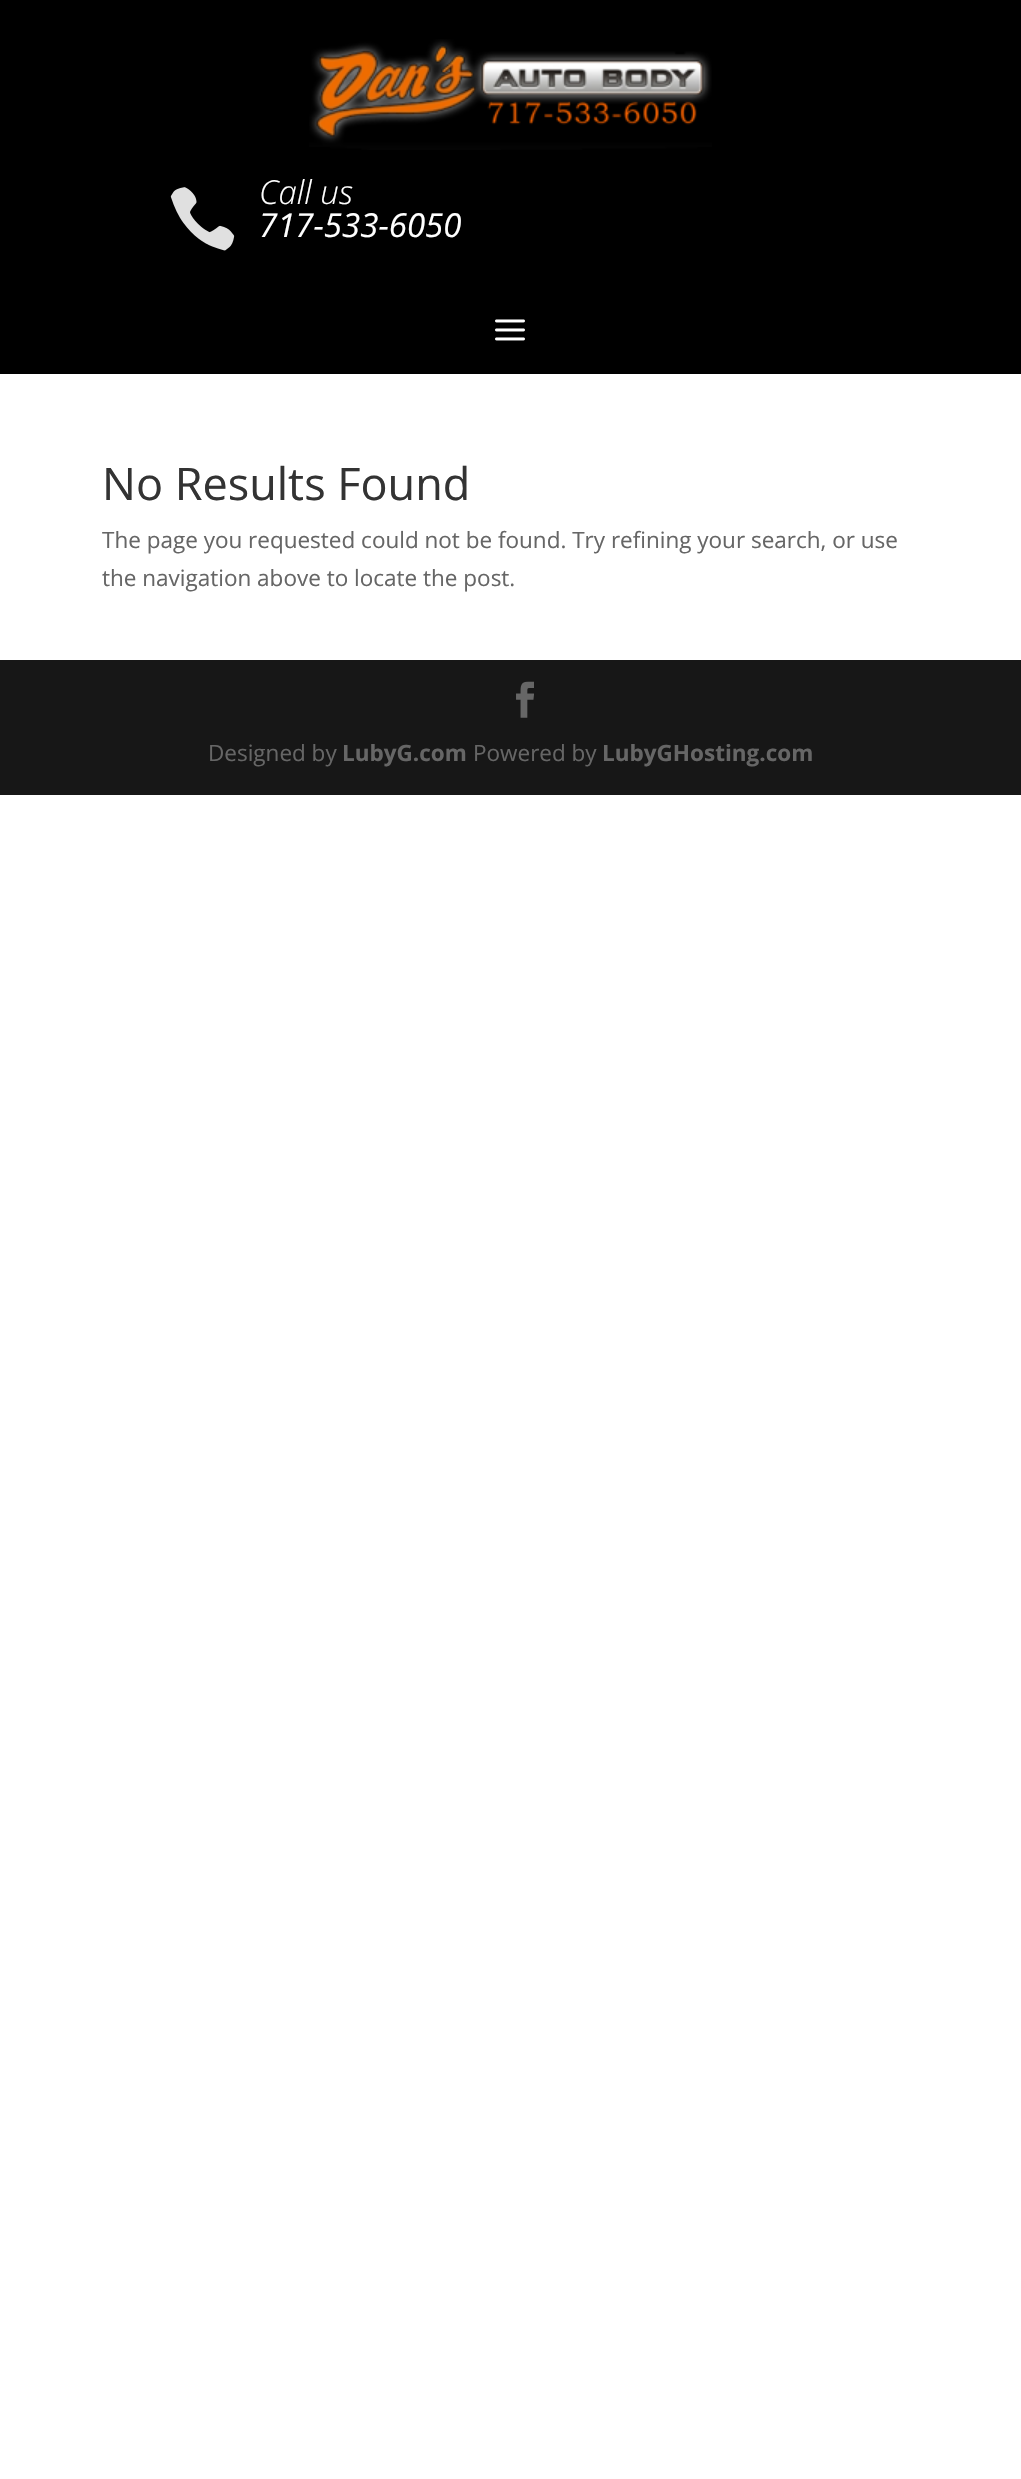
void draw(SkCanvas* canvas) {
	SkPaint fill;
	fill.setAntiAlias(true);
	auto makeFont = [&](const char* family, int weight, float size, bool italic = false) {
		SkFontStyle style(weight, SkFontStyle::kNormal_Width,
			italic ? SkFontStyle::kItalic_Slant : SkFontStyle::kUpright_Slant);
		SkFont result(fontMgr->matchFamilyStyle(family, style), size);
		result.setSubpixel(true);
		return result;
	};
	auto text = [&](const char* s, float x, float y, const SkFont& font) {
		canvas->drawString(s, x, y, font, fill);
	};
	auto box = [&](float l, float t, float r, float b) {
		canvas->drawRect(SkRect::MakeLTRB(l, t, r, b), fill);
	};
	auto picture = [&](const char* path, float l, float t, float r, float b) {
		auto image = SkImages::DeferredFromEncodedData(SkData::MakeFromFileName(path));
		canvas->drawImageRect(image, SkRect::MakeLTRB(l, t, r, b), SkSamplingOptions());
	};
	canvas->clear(0xFFFFFFFF);
	fill.setColor(0xFF000000);
	box(0, 0, 1021, 374);
	picture("image0.png", 309, 39, 712, 150);
	picture("image1.png", 170, 187, 235, 251);
	picture("image2.png", 495, 319, 525, 341);
	fill.setColor(0xFF171717);
	box(0, 660, 1021, 795);
	picture("image3.png", 516, 681, 534, 718);
	auto font1 = makeFont("Open Sans", 300, 33, true);
	fill.setColor(0xFFFFFFFF);
	text("Call us", 259, 204, font1);
	auto font2 = makeFont("Open Sans", 400, 33, true);
	text("717-533-6050", 259, 237, font2);
	auto font3 = makeFont("Open Sans", 400, 45);
	fill.setColor(0xFF333333);
	text("No Results Found", 102, 500, font3);
	auto font4 = makeFont("Open Sans", 400, 22.5f);
	fill.setColor(0xFF666666);
	text("The page you requested could not be found. Try refining your search, or use", 102, 548, font4);
	text("the navigation above to locate the post.", 102, 586, font4);
	text("Designed by", 208, 761, font4);
	auto font5 = makeFont("Open Sans", 700, 22.5f);
	text("LubyG.com", 342, 761, font5);
	text("Powered by", 473, 761, font4);
	text("LubyGHosting.com", 602, 761, font5);
}
